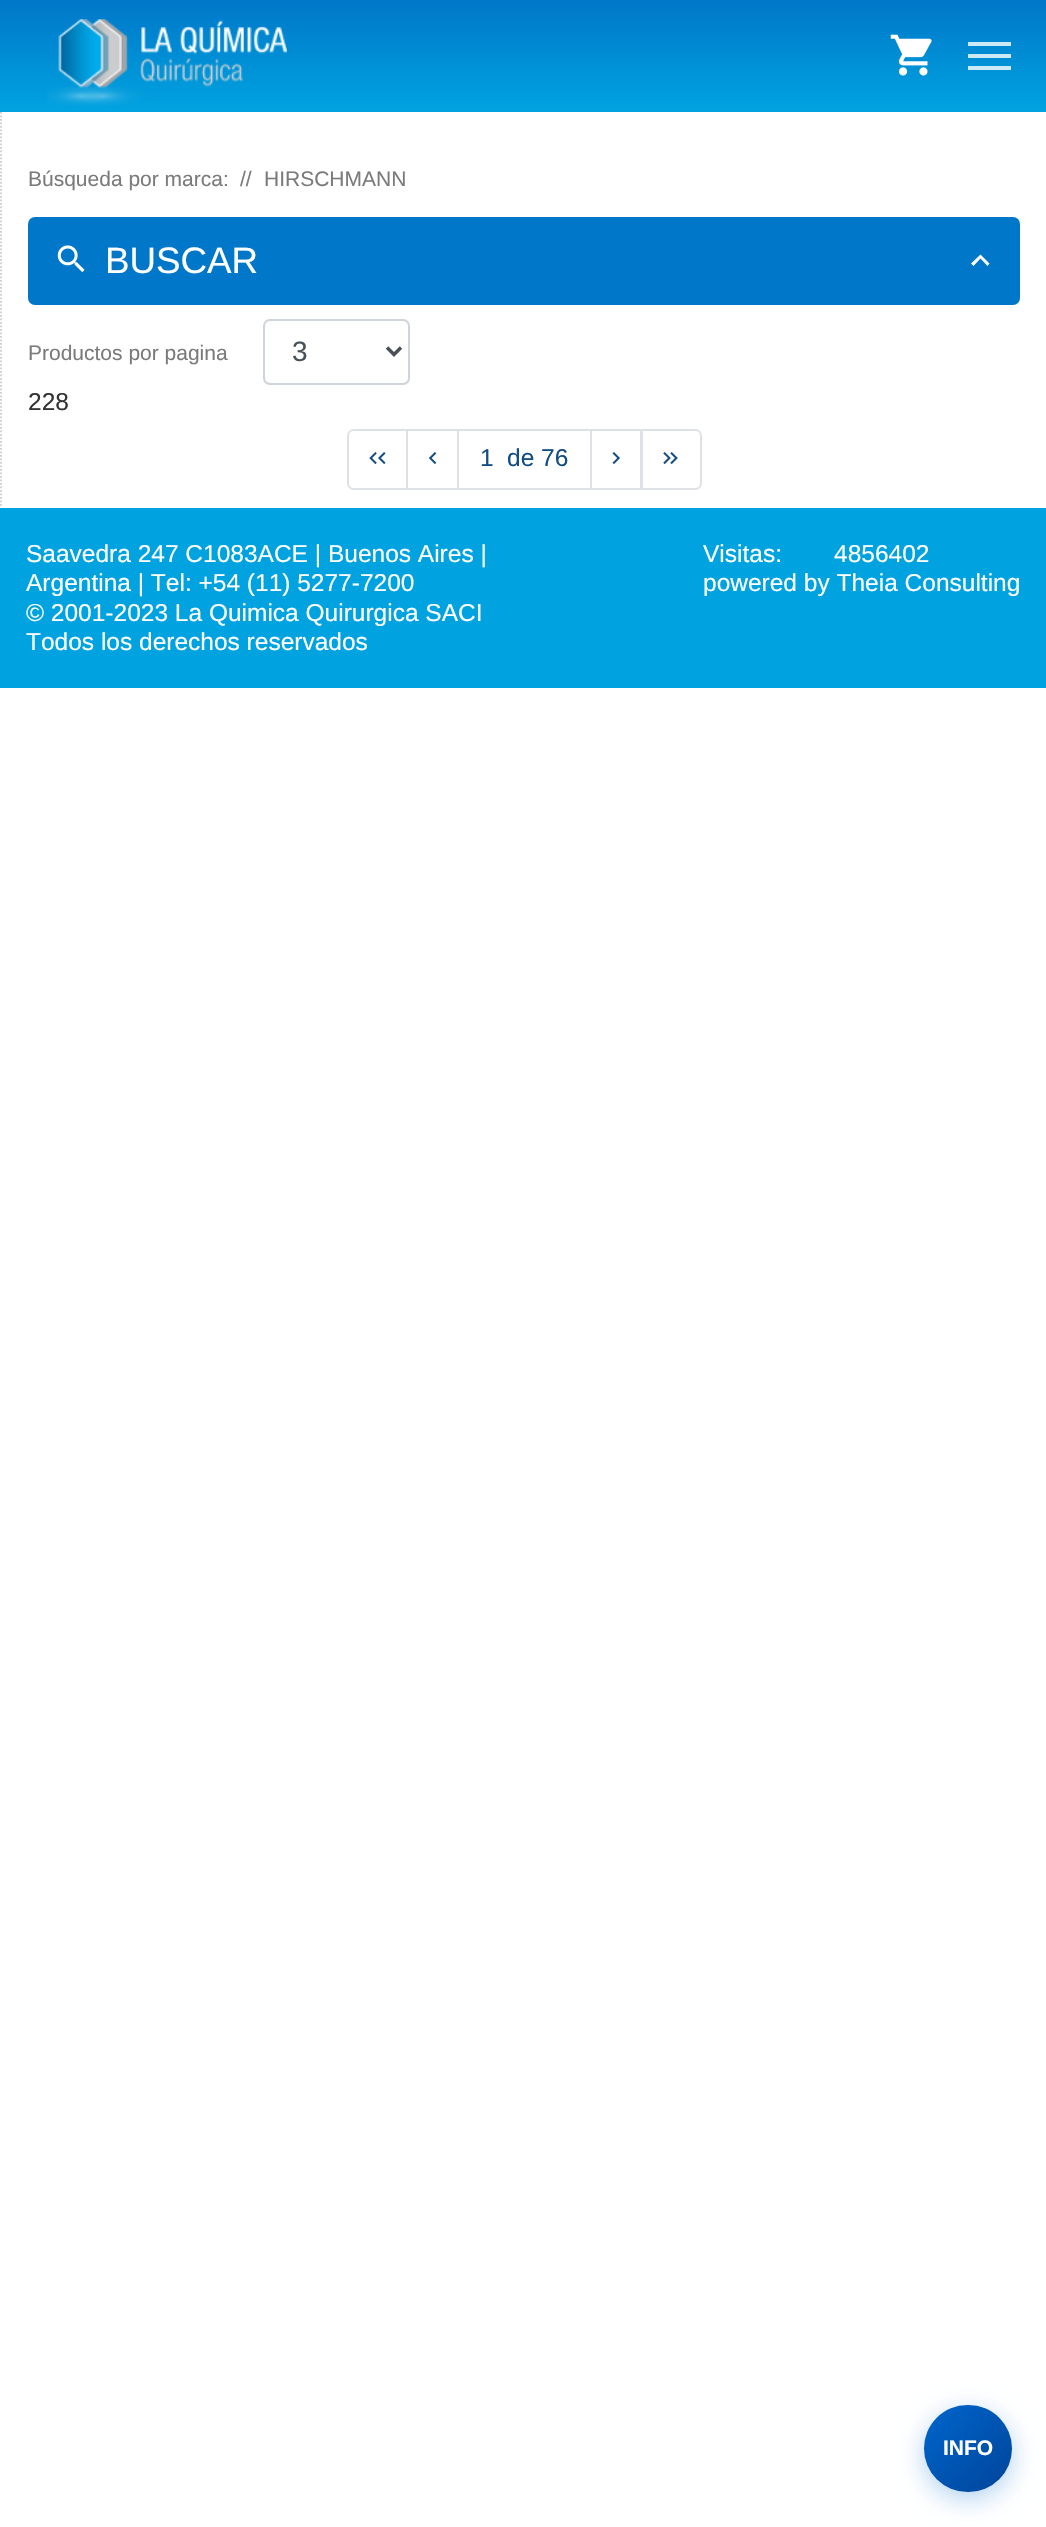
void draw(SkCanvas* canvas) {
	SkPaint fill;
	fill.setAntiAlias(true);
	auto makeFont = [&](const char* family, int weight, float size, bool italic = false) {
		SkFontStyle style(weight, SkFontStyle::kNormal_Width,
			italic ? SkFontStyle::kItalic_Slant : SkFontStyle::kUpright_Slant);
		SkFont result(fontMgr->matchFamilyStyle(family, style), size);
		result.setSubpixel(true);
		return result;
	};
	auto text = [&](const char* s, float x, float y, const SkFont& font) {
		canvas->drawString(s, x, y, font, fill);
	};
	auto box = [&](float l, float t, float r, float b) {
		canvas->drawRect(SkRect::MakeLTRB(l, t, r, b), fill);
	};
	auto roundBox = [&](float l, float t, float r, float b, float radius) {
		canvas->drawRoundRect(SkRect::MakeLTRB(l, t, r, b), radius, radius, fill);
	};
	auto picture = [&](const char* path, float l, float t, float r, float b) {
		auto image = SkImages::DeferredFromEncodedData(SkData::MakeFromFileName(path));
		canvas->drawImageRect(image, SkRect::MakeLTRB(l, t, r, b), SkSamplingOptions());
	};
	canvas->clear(0xFFFFFFFF);
	{
		const SkColor colors[] = {0xFF00A3E0, 0xFF0077C8};
		const float stops[] = {0, 1};
		const SkPoint ends[] = {{523, 112}, {523, 0}};
		fill.setShader(SkGradientShader::MakeLinear(ends, colors, stops, 2, SkTileMode::kClamp));
		fill.setAlpha(255);
	}
	box(0, 0, 1046, 112);
	picture("image0.png", 47, 19, 287, 106);
	picture("image1.png", 890, 34, 932, 76);
	fill.setShader(nullptr);
	fill.setColor(0xCCFFFFFF);
	canvas->drawPath(SkPathBuilder().moveTo(968, 70).lineTo(968, 66).lineTo(1011, 66).lineTo(1011, 70).close().moveTo(968, 58).lineTo(968, 54).lineTo(1011, 54).lineTo(1011, 58).close().moveTo(968, 42).lineTo(1011, 42).lineTo(1011, 46).lineTo(968, 46).close().detach(), fill);
	fill.setStyle(SkPaint::kStroke_Style);
	fill.setStrokeWidth(1.8f);
	fill.setColor(0xFFCCCCCC);
	fill.setPathEffect(SkDashPathEffect::Make({{1.75f, 1.75f}}, 0));
	canvas->drawPath(SkPathBuilder().moveTo(1, 112).lineTo(1, 507.5f).detach(), fill);
	fill.setPathEffect(nullptr);
	fill.setStyle(SkPaint::kFill_Style);
	fill.setColor(0xFF0077C8);
	roundBox(28, 217, 1020, 305, 7);
	picture("image2.png", 57, 245, 85, 273);
	fill.setColor(0xFFFFFFFF);
	canvas->drawPath(SkPathBuilder().moveTo(973.5f, 266).lineTo(971, 263.5f).lineTo(980.5f, 254.5f).lineTo(989.5f, 263.5f).lineTo(987.5f, 266).lineTo(980.5f, 258.5f).close().detach(), fill);
	fill.setStyle(SkPaint::kStroke_Style);
	fill.setStrokeWidth(2);
	fill.setColor(0xFFCED4DA);
	canvas->drawRoundRect(SkRect::MakeLTRB(264, 320, 409, 384), 6, 6, fill);
	fill.setStrokeWidth(3.5f);
	fill.setColor(0xFF495057);
	canvas->drawPath(SkPathBuilder().moveTo(387, 347.5f).lineTo(394, 354.5f).lineTo(401, 347.5f).detach(), fill);
	fill.setStrokeWidth(2);
	fill.setColor(0xFFDEE2E6);
	canvas->drawPath(SkPathBuilder().moveTo(354, 430).lineTo(407, 430).lineTo(407, 489).lineTo(354, 489).cubicTo(350.5f, 489, 348, 486.5f, 348, 483).lineTo(348, 436).cubicTo(348, 432.5f, 350.5f, 430, 354, 430).close().detach(), fill);
	picture("image3.png", 369, 452, 377, 465);
	picture("image4.png", 378, 452, 386, 465);
	canvas->drawRect(SkRect::MakeLTRB(407, 430, 458, 489), fill);
	picture("image5.png", 428, 452, 437, 465);
	canvas->drawRect(SkRect::MakeLTRB(458, 430, 591, 489), fill);
	canvas->drawRect(SkRect::MakeLTRB(591, 430, 641, 489), fill);
	picture("image6.png", 612, 452, 620, 465);
	fill.setStyle(SkPaint::kFill_Style);
	fill.setColor(0xFFFFFFFF);
	canvas->drawPath(SkPathBuilder().moveTo(642, 430).lineTo(695, 430).cubicTo(698.5f, 430, 701, 432.5f, 701, 436).lineTo(701, 483).cubicTo(701, 486.5f, 698.5f, 489, 695, 489).lineTo(642, 489).close().detach(), fill);
	fill.setStyle(SkPaint::kStroke_Style);
	fill.setColor(0xFFDEE2E6);
	canvas->drawPath(SkPathBuilder().moveTo(642, 430).lineTo(695, 430).cubicTo(698.5f, 430, 701, 432.5f, 701, 436).lineTo(701, 483).cubicTo(701, 486.5f, 698.5f, 489, 695, 489).lineTo(642, 489).close().detach(), fill);
	picture("image7.png", 663, 452, 671, 465);
	picture("image8.png", 670, 452, 678, 465);
	fill.setStyle(SkPaint::kFill_Style);
	fill.setColor(0xFF00A3E0);
	box(0, 508, 1046, 688);
	fill.setColor(0x4D0066CC);
	fill.setMaskFilter(SkMaskFilter::MakeBlur(kNormal_SkBlurStyle, 13));
	canvas->drawRoundRect(SkRect::MakeLTRB(924, 2412, 1012, 2499), 43.5f, 43.5f, fill);
	fill.setMaskFilter(nullptr);
	{
		const SkColor colors[] = {0xFF0066CC, 0xFF004499};
		const float stops[] = {0, 1};
		const SkPoint ends[] = {{924, 2405}, {1012, 2492}};
		fill.setShader(SkGradientShader::MakeLinear(ends, colors, stops, 2, SkTileMode::kClamp));
		fill.setAlpha(255);
	}
	roundBox(924, 2405, 1012, 2492, 43.5f);
	auto font1 = makeFont("Liberation Sans", 400, 21);
	fill.setShader(nullptr);
	fill.setColor(0xFF7B7B7B);
	text("Búsqueda por marca:", 28, 186, font1);
	text("//", 240, 186, font1);
	text("HIRSCHMANN", 264, 186, font1);
	auto font2 = makeFont("Liberation Sans", 400, 36.75f);
	fill.setColor(0xFFFFFFFF);
	text("BUSCAR", 105, 273, font2);
	fill.setColor(0xFF7B7B7B);
	text("Productos por pagina", 28, 360, font1);
	auto font3 = makeFont("Liberation Sans", 400, 28);
	fill.setColor(0xFF495057);
	text("3", 292, 361, font3);
	auto font4 = makeFont("Liberation Sans", 400, 24.5f);
	fill.setColor(0xFF333333);
	text("228", 28, 410, font4);
	fill.setColor(0xFF134D84);
	text("1", 480, 466, font4);
	text("de 76", 507, 466, font4);
	fill.setColor(0xFFFFFFFF);
	text("Saavedra 247 C1083ACE | Buenos Aires |", 26, 562, font4);
	text("Argentina | Tel: +54 (11) 5277-7200", 26, 591, font4);
	text("© 2001-2023 La Quimica Quirurgica SACI", 26, 621, font4);
	text("Todos los derechos reservados", 26, 650, font4);
	text("Visitas:", 703, 562, font4);
	text("4856402", 834, 562, font4);
	text("powered by Theia Consulting", 703, 591, font4);
	auto font5 = makeFont("Liberation Sans", 700, 21);
	text("INFO", 943, 2455, font5);
}
